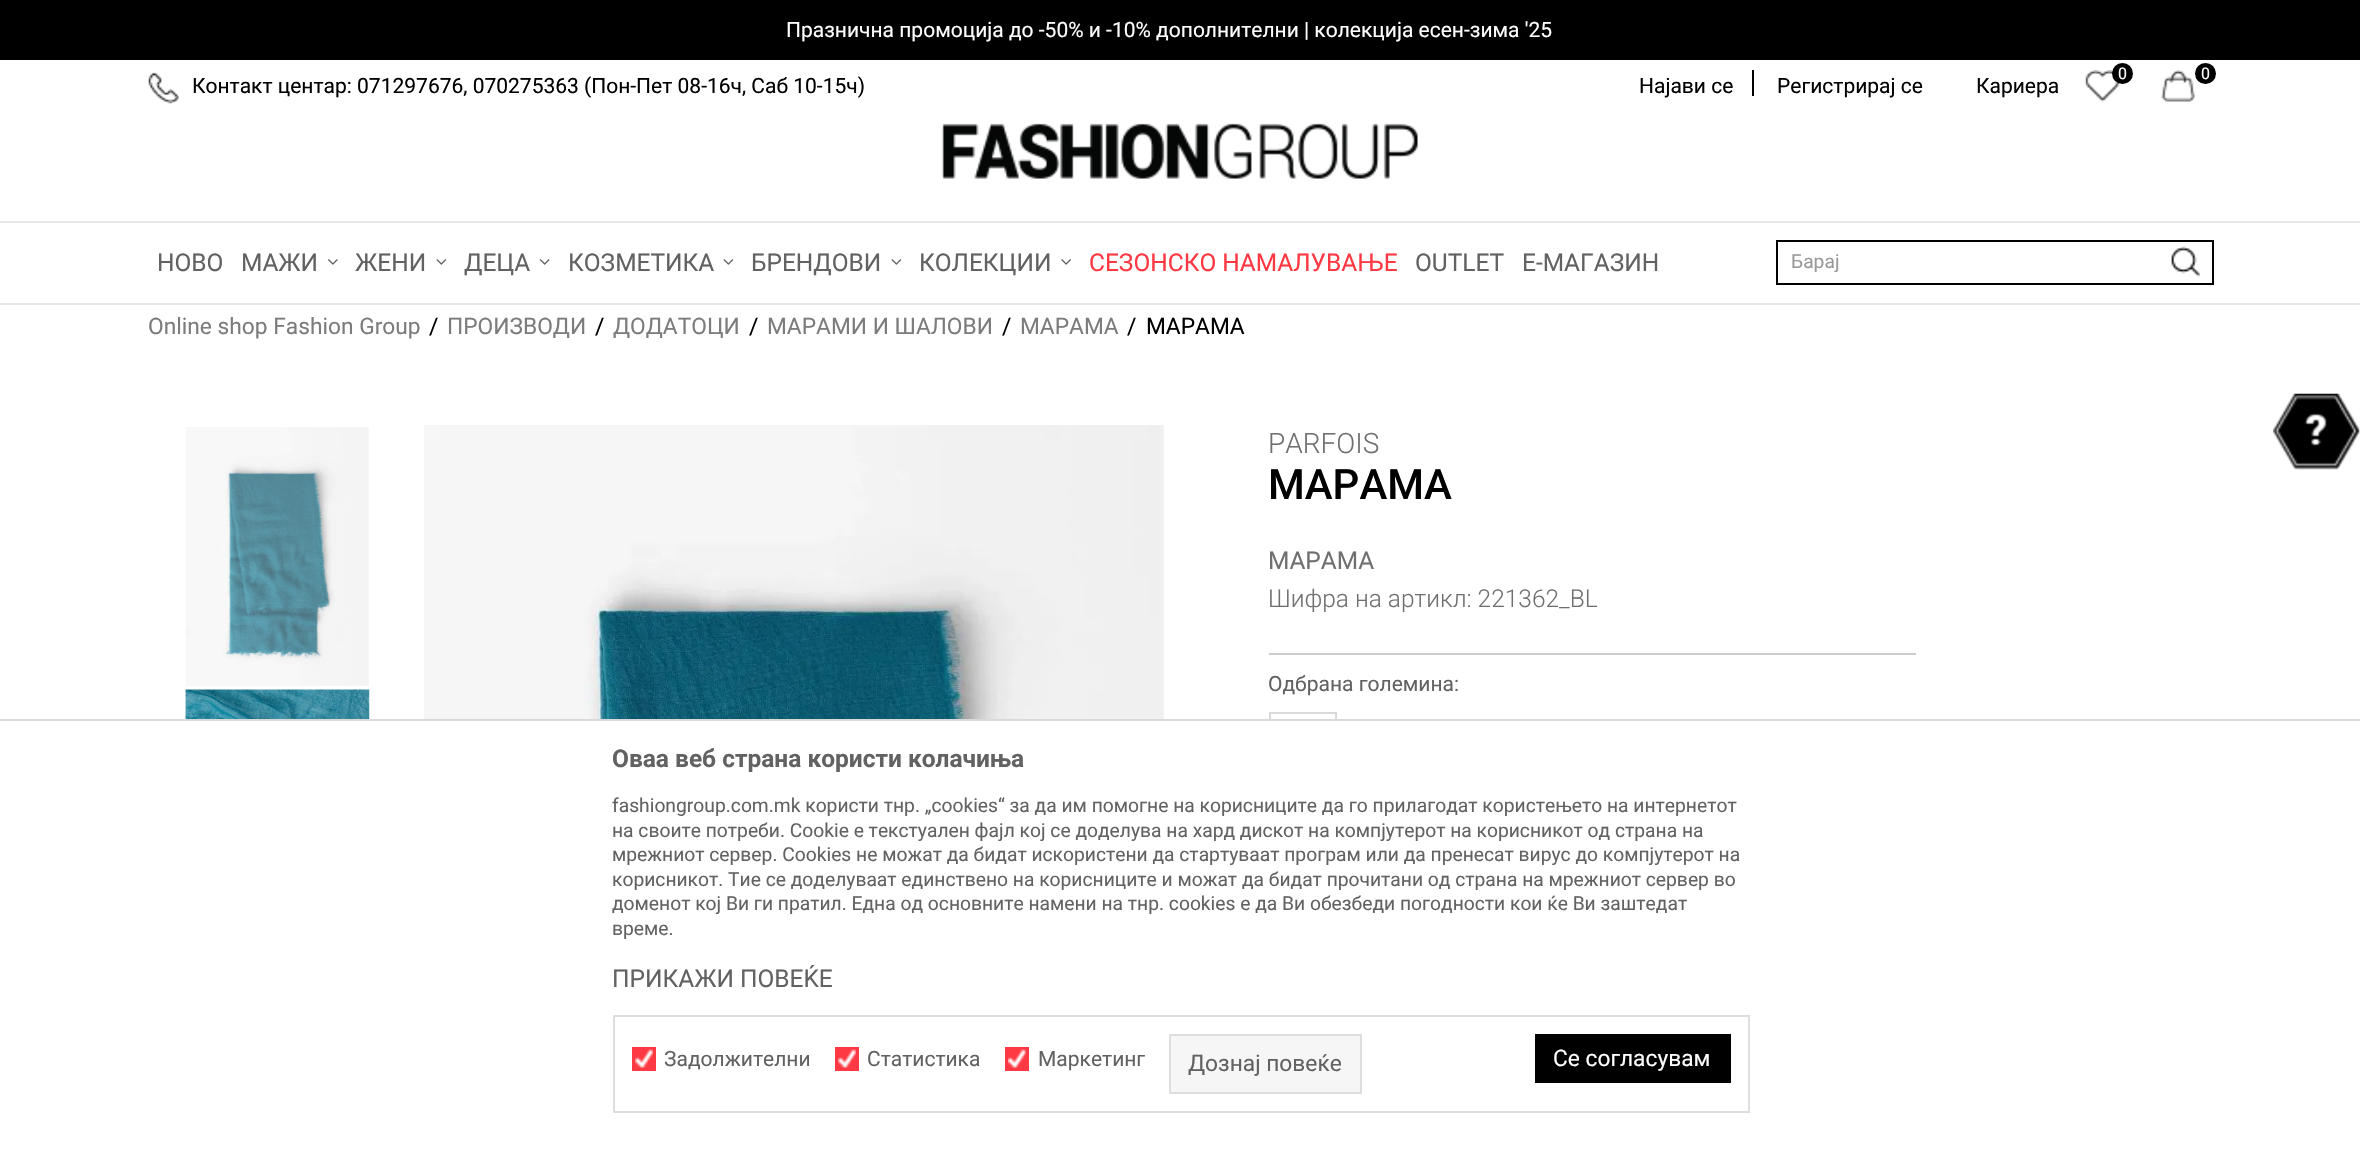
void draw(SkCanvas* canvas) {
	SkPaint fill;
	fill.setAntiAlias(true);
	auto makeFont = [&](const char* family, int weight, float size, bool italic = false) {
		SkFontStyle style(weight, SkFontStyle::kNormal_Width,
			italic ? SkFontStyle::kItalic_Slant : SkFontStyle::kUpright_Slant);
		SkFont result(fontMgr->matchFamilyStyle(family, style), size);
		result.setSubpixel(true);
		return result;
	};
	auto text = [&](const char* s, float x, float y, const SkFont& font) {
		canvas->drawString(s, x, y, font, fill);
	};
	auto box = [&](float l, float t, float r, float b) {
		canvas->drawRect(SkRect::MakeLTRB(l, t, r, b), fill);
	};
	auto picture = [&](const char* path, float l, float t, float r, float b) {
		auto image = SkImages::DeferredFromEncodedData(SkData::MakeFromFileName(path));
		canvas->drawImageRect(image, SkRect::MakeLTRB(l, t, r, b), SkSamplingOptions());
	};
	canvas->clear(0xFFFFFFFF);
	fill.setColor(0xFF000000);
	box(0, 0, 2360, 60);
	picture("image0.png", 148, 72, 179, 104);
	picture("image1.png", 2085, 70, 2120, 102);
	canvas->drawCircle(2122.5f, 73.5f, 10.5f, fill);
	picture("image2.png", 2161, 70, 2196, 102);
	canvas->drawCircle(2205.5f, 73.5f, 10.5f, fill);
	box(1752, 70, 1754, 96);
	picture("image3.png", 941, 123, 1418, 179);
	fill.setColor(0xFFE6E6E6);
	box(0, 221, 2360, 223);
	box(0, 303, 2360, 305);
	picture("image4.png", 328, 259, 338, 265);
	picture("image5.png", 436, 259, 447, 265);
	picture("image6.png", 539, 259, 550, 265);
	picture("image5.png", 723, 259, 734, 265);
	picture("image5.png", 891, 259, 902, 265);
	picture("image7.png", 1061, 259, 1071, 265);
	fill.setStyle(SkPaint::kStroke_Style);
	fill.setStrokeWidth(2);
	fill.setColor(0xFF000000);
	canvas->drawRect(SkRect::MakeLTRB(1777, 241, 2213, 284), fill);
	picture("image8.png", 2171, 246, 2200, 277);
	picture("image9.png", 186, 427, 369, 686);
	picture("image10.png", 185, 689, 370, 719);
	picture("image11.png", 424, 425, 1164, 719);
	fill.setStyle(SkPaint::kFill_Style);
	fill.setColor(0xFFCCCCCC);
	box(1269, 653, 1916, 655);
	fill.setStyle(SkPaint::kStroke_Style);
	fill.setColor(0xFFD9D9D9);
	canvas->drawRect(SkRect::MakeLTRB(1270, 713, 1336, 781), fill);
	picture("image12.png", 2273, 393, 2360, 470);
	canvas->drawRect(SkRect::MakeLTRB(-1, 720, 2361, 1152), fill);
	fill.setStyle(SkPaint::kFill_Style);
	fill.setColor(0xFFFFFFFF);
	box(1269, 721, 1337, 782);
	fill.setStyle(SkPaint::kStroke_Style);
	fill.setColor(0xFFDEDEDE);
	canvas->drawRect(SkRect::MakeLTRB(614, 1016, 1749, 1112), fill);
	fill.setStyle(SkPaint::kFill_Style);
	fill.setColor(0xFFFF3943);
	box(632, 1047, 656, 1071);
	picture("image13.png", 635, 1049, 653, 1068);
	box(835, 1047, 859, 1071);
	picture("image13.png", 838, 1049, 856, 1068);
	box(1005, 1047, 1029, 1071);
	picture("image14.png", 1008, 1049, 1026, 1068);
	fill.setColor(0xFFF6F6F6);
	canvas->drawRect(SkRect::MakeLTRB(1170, 1035, 1361, 1093), fill);
	fill.setStyle(SkPaint::kStroke_Style);
	fill.setColor(0xFFDEDEDE);
	canvas->drawRect(SkRect::MakeLTRB(1170, 1035, 1361, 1093), fill);
	fill.setStyle(SkPaint::kFill_Style);
	fill.setColor(0xFF000000);
	box(1535, 1034, 1731, 1083);
	auto font1 = makeFont("Roboto", 400, 21);
	fill.setColor(0xFFFFFFFF);
	text("Празнична промоција до -50% и -10% дополнителни | колекција есен-зима '25", 786, 37, font1);
	fill.setColor(0xFF000000);
	text("Контакт центар: 071297676, 070275363 (Пон-Пет 08-16ч, Саб 10-15ч)", 192, 93, font1);
	auto font2 = makeFont("Roboto", 400, 16);
	fill.setColor(0xFFFFFFFF);
	text("0", 2118, 79, font2);
	text("0", 2201, 79, font2);
	fill.setColor(0xFF000000);
	text("Најави се", 1639, 93, font1);
	text("Регистрирај се", 1777, 93, font1);
	text("Кариера", 1976, 93, font1);
	auto font3 = makeFont("Roboto", 400, 24.5f);
	fill.setColor(0xFF626262);
	text("НОВО", 157, 271, font3);
	text("МАЖИ", 241, 271, font3);
	text("ЖЕНИ", 355, 271, font3);
	text("ДЕЦА", 464, 271, font3);
	text("КОЗМЕТИКА", 568, 271, font3);
	text("БРЕНДОВИ", 751, 271, font3);
	text("КОЛЕКЦИИ", 919, 271, font3);
	fill.setColor(0xFFFF3943);
	text("СЕЗОНСКО НАМАЛУВАЊЕ", 1089, 271, font3);
	fill.setColor(0xFF626262);
	text("OUTLET", 1415, 271, font3);
	text("Е-МАГАЗИН", 1522, 271, font3);
	auto font4 = makeFont("Roboto", 400, 19.25f);
	fill.setColor(0xFF999999);
	text("Барај", 1791, 268, font4);
	auto font5 = makeFont("Roboto", 400, 22.75f);
	fill.setColor(0xFF7C7C7C);
	text("Online shop Fashion Group", 148, 334, font5);
	fill.setColor(0xFF000000);
	text("/", 429, 334, font5);
	fill.setColor(0xFF7C7C7C);
	text("ПРОИЗВОДИ", 447, 334, font5);
	fill.setColor(0xFF000000);
	text("/", 595, 334, font5);
	fill.setColor(0xFF7C7C7C);
	text("ДОДАТОЦИ", 613, 334, font5);
	fill.setColor(0xFF000000);
	text("/", 749, 334, font5);
	fill.setColor(0xFF7C7C7C);
	text("МАРАМИ И ШАЛОВИ", 767, 334, font5);
	fill.setColor(0xFF000000);
	text("/", 1002, 334, font5);
	fill.setColor(0xFF7C7C7C);
	text("МАРАМА", 1020, 334, font5);
	fill.setColor(0xFF000000);
	text("/", 1127, 334, font5);
	text("МАРАМА", 1146, 334, font5);
	auto font6 = makeFont("Roboto", 300, 28);
	fill.setColor(0xFF707070);
	text("PARFOIS", 1268, 453, font6);
	auto font7 = makeFont("Roboto", 500, 42);
	fill.setColor(0xFF000000);
	text("МАРАМА", 1268, 499, font7);
	fill.setColor(0xFF707070);
	text("МАРАМА", 1268, 569, font3);
	auto font8 = makeFont("Roboto", 300, 24.5f);
	text("Шифра на артикл: 221362_BL", 1268, 607, font8);
	fill.setColor(0xFF626262);
	text("Одбрана големина:", 1268, 691, font1);
	auto font9 = makeFont("Roboto", 700, 24.5f);
	text("Оваа веб страна користи колачиња", 612, 767, font9);
	text("fashiongroup.com.mk користи тнр. „cookies“ за да им помогне на корисниците да го прилагодат користењето на интернетот", 612, 812, font4);
	text("на своите потреби. Cookie е текстуален фајл кој се доделува на хард дискот на компјутерот на корисникот од страна на", 612, 837, font4);
	text("мрежниот сервер. Cookies не можат да бидат искористени да стартуваат програм или да пренесат вирус до компјутерот на", 612, 861, font4);
	text("корисникот. Тие се доделуваат единствено на корисниците и можат да бидат прочитани од страна на мрежниот сервер во", 612, 886, font4);
	text("доменот кој Ви ги пратил. Една од основните намени на тнр. сookies е да Ви обезбеди погодности кои ќе Ви заштедат", 612, 910, font4);
	text("време.", 612, 935, font4);
	text("ПРИКАЖИ ПОВЕЌЕ", 612, 987, font3);
	text("Задолжителни", 664, 1066, font1);
	text("Статистика", 867, 1066, font1);
	text("Маркетинг", 1038, 1066, font1);
	text("Дознај повеќе", 1188, 1071, font5);
	fill.setColor(0xFFFFFFFF);
	text("Се согласувам", 1553, 1066, font5);
}
